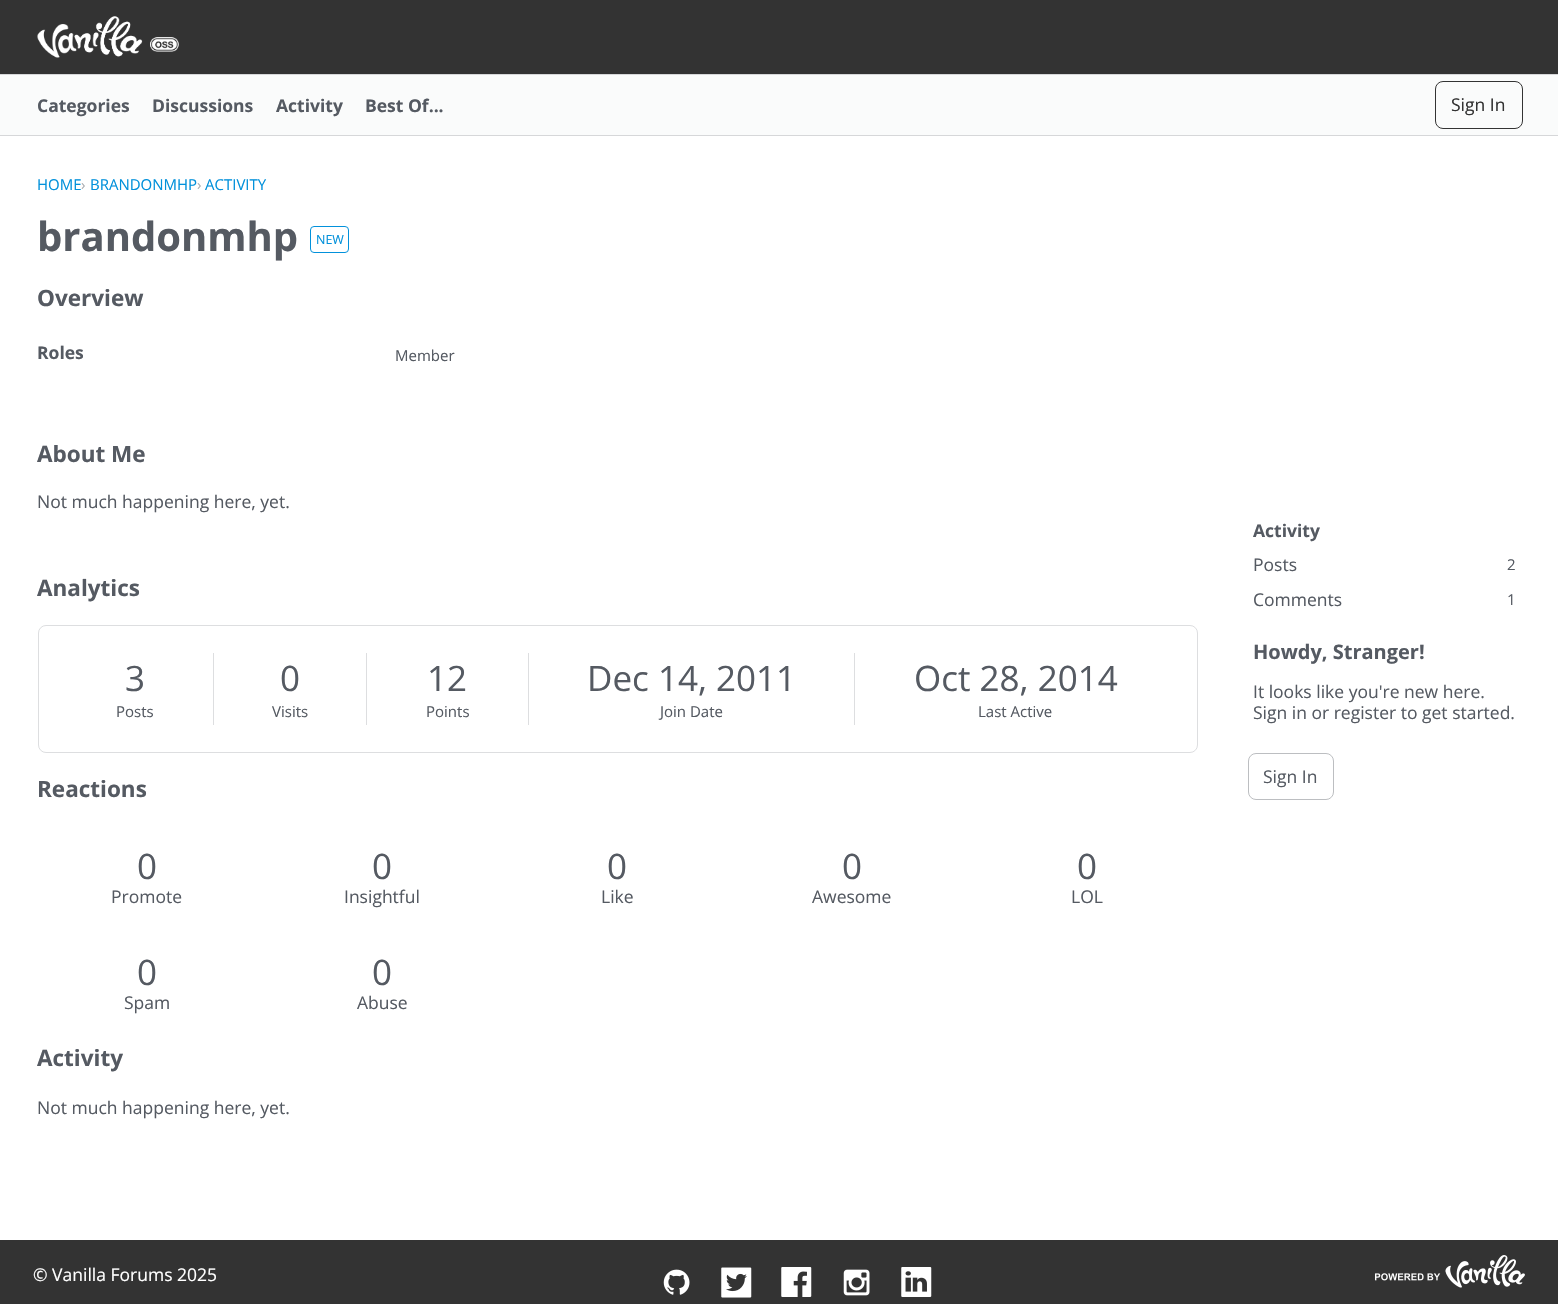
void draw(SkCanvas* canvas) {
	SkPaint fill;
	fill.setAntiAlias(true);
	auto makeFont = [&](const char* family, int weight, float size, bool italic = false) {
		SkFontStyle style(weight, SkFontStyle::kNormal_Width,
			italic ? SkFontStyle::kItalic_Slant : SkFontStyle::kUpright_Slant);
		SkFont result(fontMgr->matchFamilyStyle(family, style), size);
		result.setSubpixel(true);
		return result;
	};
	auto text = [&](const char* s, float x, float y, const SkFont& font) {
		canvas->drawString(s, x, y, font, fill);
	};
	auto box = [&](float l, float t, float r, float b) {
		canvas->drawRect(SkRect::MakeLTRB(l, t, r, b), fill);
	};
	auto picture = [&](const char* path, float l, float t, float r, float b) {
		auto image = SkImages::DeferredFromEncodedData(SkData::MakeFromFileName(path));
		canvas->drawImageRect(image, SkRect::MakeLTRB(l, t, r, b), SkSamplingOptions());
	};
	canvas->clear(0xFFFFFFFF);
	fill.setColor(0xFF333333);
	box(0, 0, 1558, 74);
	fill.setColor(0xFFD6D7D9);
	box(0, 74, 1558, 75);
	picture("image0.png", 37, 16, 179, 58);
	fill.setColor(0xFFFAFBFB);
	box(0, 75, 1558, 135);
	fill.setColor(0xFFD6D7D9);
	box(0, 135, 1558, 136);
	fill.setStyle(SkPaint::kStroke_Style);
	fill.setStrokeWidth(1);
	fill.setColor(0xFF333333);
	canvas->drawRoundRect(SkRect::MakeLTRB(1435.5f, 81.5f, 1522.5f, 128.5f), 7.5f, 7.5f, fill);
	fill.setColor(0xFF0291DB);
	canvas->drawRoundRect(SkRect::MakeLTRB(310.5f, 226.5f, 348.5f, 252.5f), 3.5f, 3.5f, fill);
	fill.setColor(0xFFDDDEE0);
	canvas->drawRoundRect(SkRect::MakeLTRB(38.5f, 625.5f, 1197.5f, 752.5f), 7.5f, 7.5f, fill);
	fill.setStyle(SkPaint::kFill_Style);
	box(213, 653, 214, 725);
	box(366, 653, 367, 725);
	box(528, 653, 529, 725);
	box(854, 653, 855, 725);
	fill.setStyle(SkPaint::kStroke_Style);
	fill.setColor(0xFFBCBEC1);
	canvas->drawRoundRect(SkRect::MakeLTRB(1248.5f, 753.5f, 1333.5f, 799.5f), 7.5f, 7.5f, fill);
	fill.setStyle(SkPaint::kFill_Style);
	fill.setColor(0xFF333333);
	box(0, 1240, 1558, 1304);
	picture("image1.png", 663, 1269, 690, 1295);
	picture("image2.png", 721, 1267, 752, 1298);
	picture("image3.png", 781, 1267, 812, 1297);
	picture("image4.png", 843, 1269, 870, 1296);
	picture("image5.png", 901, 1267, 932, 1297);
	picture("image6.png", 1375, 1255, 1525, 1288);
	auto font1 = makeFont("Open Sans", 700, 17.5f);
	fill.setColor(0xFF555A62);
	text("Categories", 37, 112, font1);
	text("Discussions", 152, 112, font1);
	text("Activity", 276, 112, font1);
	text("Best Of...", 365, 112, font1);
	auto font2 = makeFont("Open Sans", 400, 17.5f);
	fill.setColor(0xFF333333);
	text("Sign In", 1451, 111, font2);
	auto font3 = makeFont("Open Sans", 400, 15);
	fill.setColor(0xFF0291DB);
	text("HOME", 37, 190, font3);
	fill.setColor(0xFFAAADB1);
	text("›", 81, 190, font3);
	fill.setColor(0xFF0291DB);
	text("BRANDONMHP", 90, 190, font3);
	fill.setColor(0xFFAAADB1);
	text("›", 197, 190, font3);
	fill.setColor(0xFF0291DB);
	text("ACTIVITY", 205, 190, font3);
	auto font4 = makeFont("Open Sans", 700, 40);
	fill.setColor(0xFF555A62);
	text("brandonmhp", 37, 251, font4);
	auto font5 = makeFont("Open Sans", 400, 12.5f);
	fill.setColor(0xFF0291DB);
	text("NEW", 316, 244, font5);
	auto font6 = makeFont("Open Sans", 700, 22.5f);
	fill.setColor(0xFF555A62);
	text("Overview", 37, 306, font6);
	text("Roles", 37, 359, font1);
	text("Member", 395, 361, font3);
	text("About Me", 37, 462, font6);
	text("Not much happening here, yet.", 37, 508, font2);
	text("Analytics", 37, 596, font6);
	auto font7 = makeFont("Open Sans", 400, 35);
	text("3", 125, 691, font7);
	text("Posts", 116, 717, font3);
	text("0", 280, 691, font7);
	text("Visits", 272, 717, font3);
	text("12", 427, 691, font7);
	text("Points", 426, 717, font3);
	text("Dec 14, 2011", 587, 691, font7);
	text("Join Date", 660, 717, font3);
	text("Oct 28, 2014", 914, 691, font7);
	text("Last Active", 978, 717, font3);
	text("Reactions", 37, 797, font6);
	text("0", 137, 879, font7);
	text("Promote", 111, 903, font2);
	text("0", 372, 879, font7);
	text("Insightful", 344, 903, font2);
	text("0", 607, 879, font7);
	text("Like", 601, 903, font2);
	text("0", 842, 879, font7);
	text("Awesome", 812, 903, font2);
	text("0", 1077, 879, font7);
	text("LOL", 1071, 903, font2);
	text("0", 137, 985, font7);
	text("Spam", 124, 1009, font2);
	text("0", 372, 985, font7);
	text("Abuse", 357, 1009, font2);
	text("Activity", 37, 1066, font6);
	text("Not much happening here, yet.", 37, 1114, font2);
	text("Activity", 1253, 537, font1);
	text("Posts", 1253, 571, font2);
	text("2", 1507, 570, font3);
	text("Comments", 1253, 606, font2);
	text("1", 1507, 605, font3);
	auto font8 = makeFont("Open Sans", 700, 20);
	text("Howdy, Stranger!", 1253, 659, font8);
	text("It looks like you're new here.", 1253, 698, font2);
	text("Sign in or register to get started.", 1253, 719, font2);
	text("Sign In", 1263, 783, font2);
	fill.setColor(0xFFFFFFFF);
	text("© Vanilla Forums 2025", 33, 1281, font2);
}
